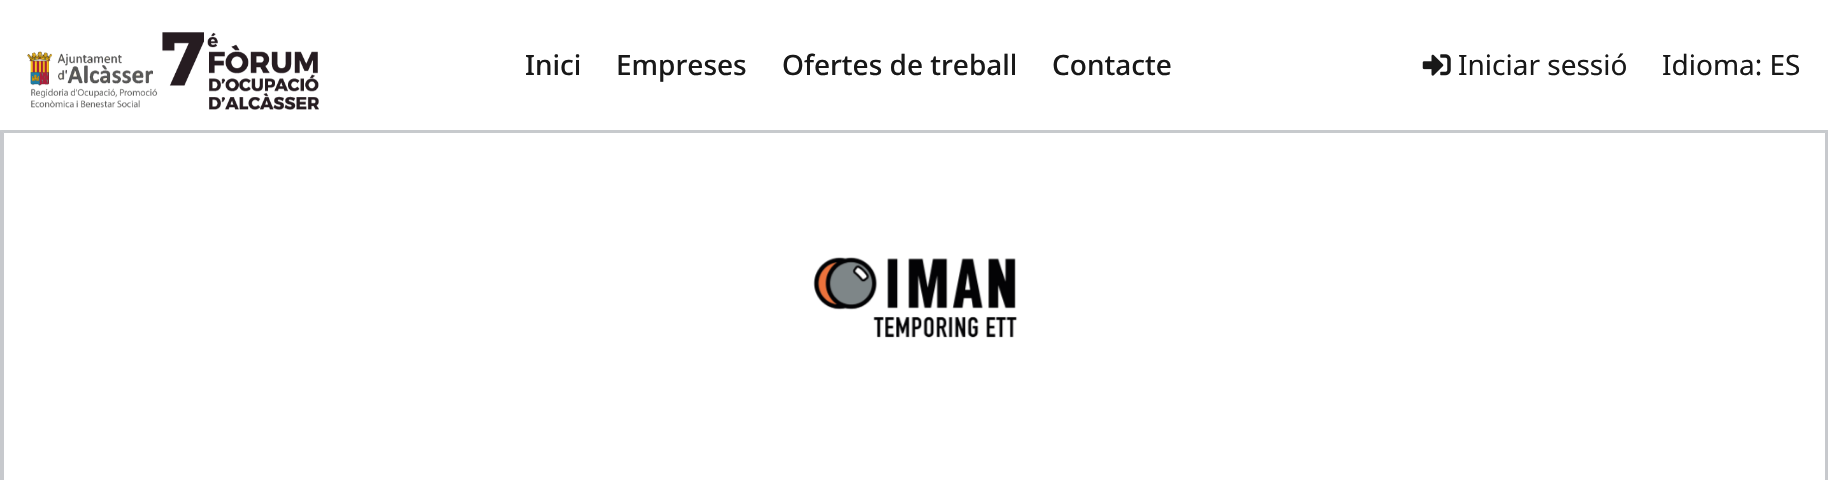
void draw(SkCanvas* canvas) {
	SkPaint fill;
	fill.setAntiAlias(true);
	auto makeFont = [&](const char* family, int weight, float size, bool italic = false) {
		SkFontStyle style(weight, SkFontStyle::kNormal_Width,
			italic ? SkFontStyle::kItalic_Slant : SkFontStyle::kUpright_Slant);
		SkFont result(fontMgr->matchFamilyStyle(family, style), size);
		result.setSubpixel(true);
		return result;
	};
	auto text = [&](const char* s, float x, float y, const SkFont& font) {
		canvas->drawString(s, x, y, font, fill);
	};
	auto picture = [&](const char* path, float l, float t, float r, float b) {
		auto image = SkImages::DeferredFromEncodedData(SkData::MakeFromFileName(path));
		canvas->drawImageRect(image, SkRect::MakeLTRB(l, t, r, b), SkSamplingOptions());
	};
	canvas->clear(0xFFFFFFFF);
	picture("image0.png", 27, 32, 319, 110);
	picture("image1.png", 1422, 54, 1451, 76);
	fill.setColor(0xFFC7CACD);
	canvas->drawPath(SkPathBuilder().moveTo(0, 130).lineTo(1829, 130).lineTo(1825, 133).lineTo(4, 133).close().detach(), fill);
	fill.setColor(0x401F2937);
	canvas->drawPath(SkPathBuilder().moveTo(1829, 130).lineTo(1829, 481).lineTo(1825, 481).lineTo(1825, 133).close().detach(), fill);
	canvas->drawPath(SkPathBuilder().moveTo(0, 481).lineTo(0, 130).lineTo(4, 133).lineTo(4, 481).close().detach(), fill);
	picture("image2.png", 813, 257, 1018, 338);
	auto font1 = makeFont("Noto Sans", 500, 28);
	fill.setColor(0xFF181818);
	text("Inici", 525, 75, font1);
	text("Empreses", 616, 75, font1);
	text("Ofertes de treball", 782, 75, font1);
	text("Contacte", 1052, 75, font1);
	auto font2 = makeFont("Noto Sans", 400, 28);
	text("Iniciar sessió", 1458, 75, font2);
	text("Idioma: ES", 1662, 75, font2);
}
